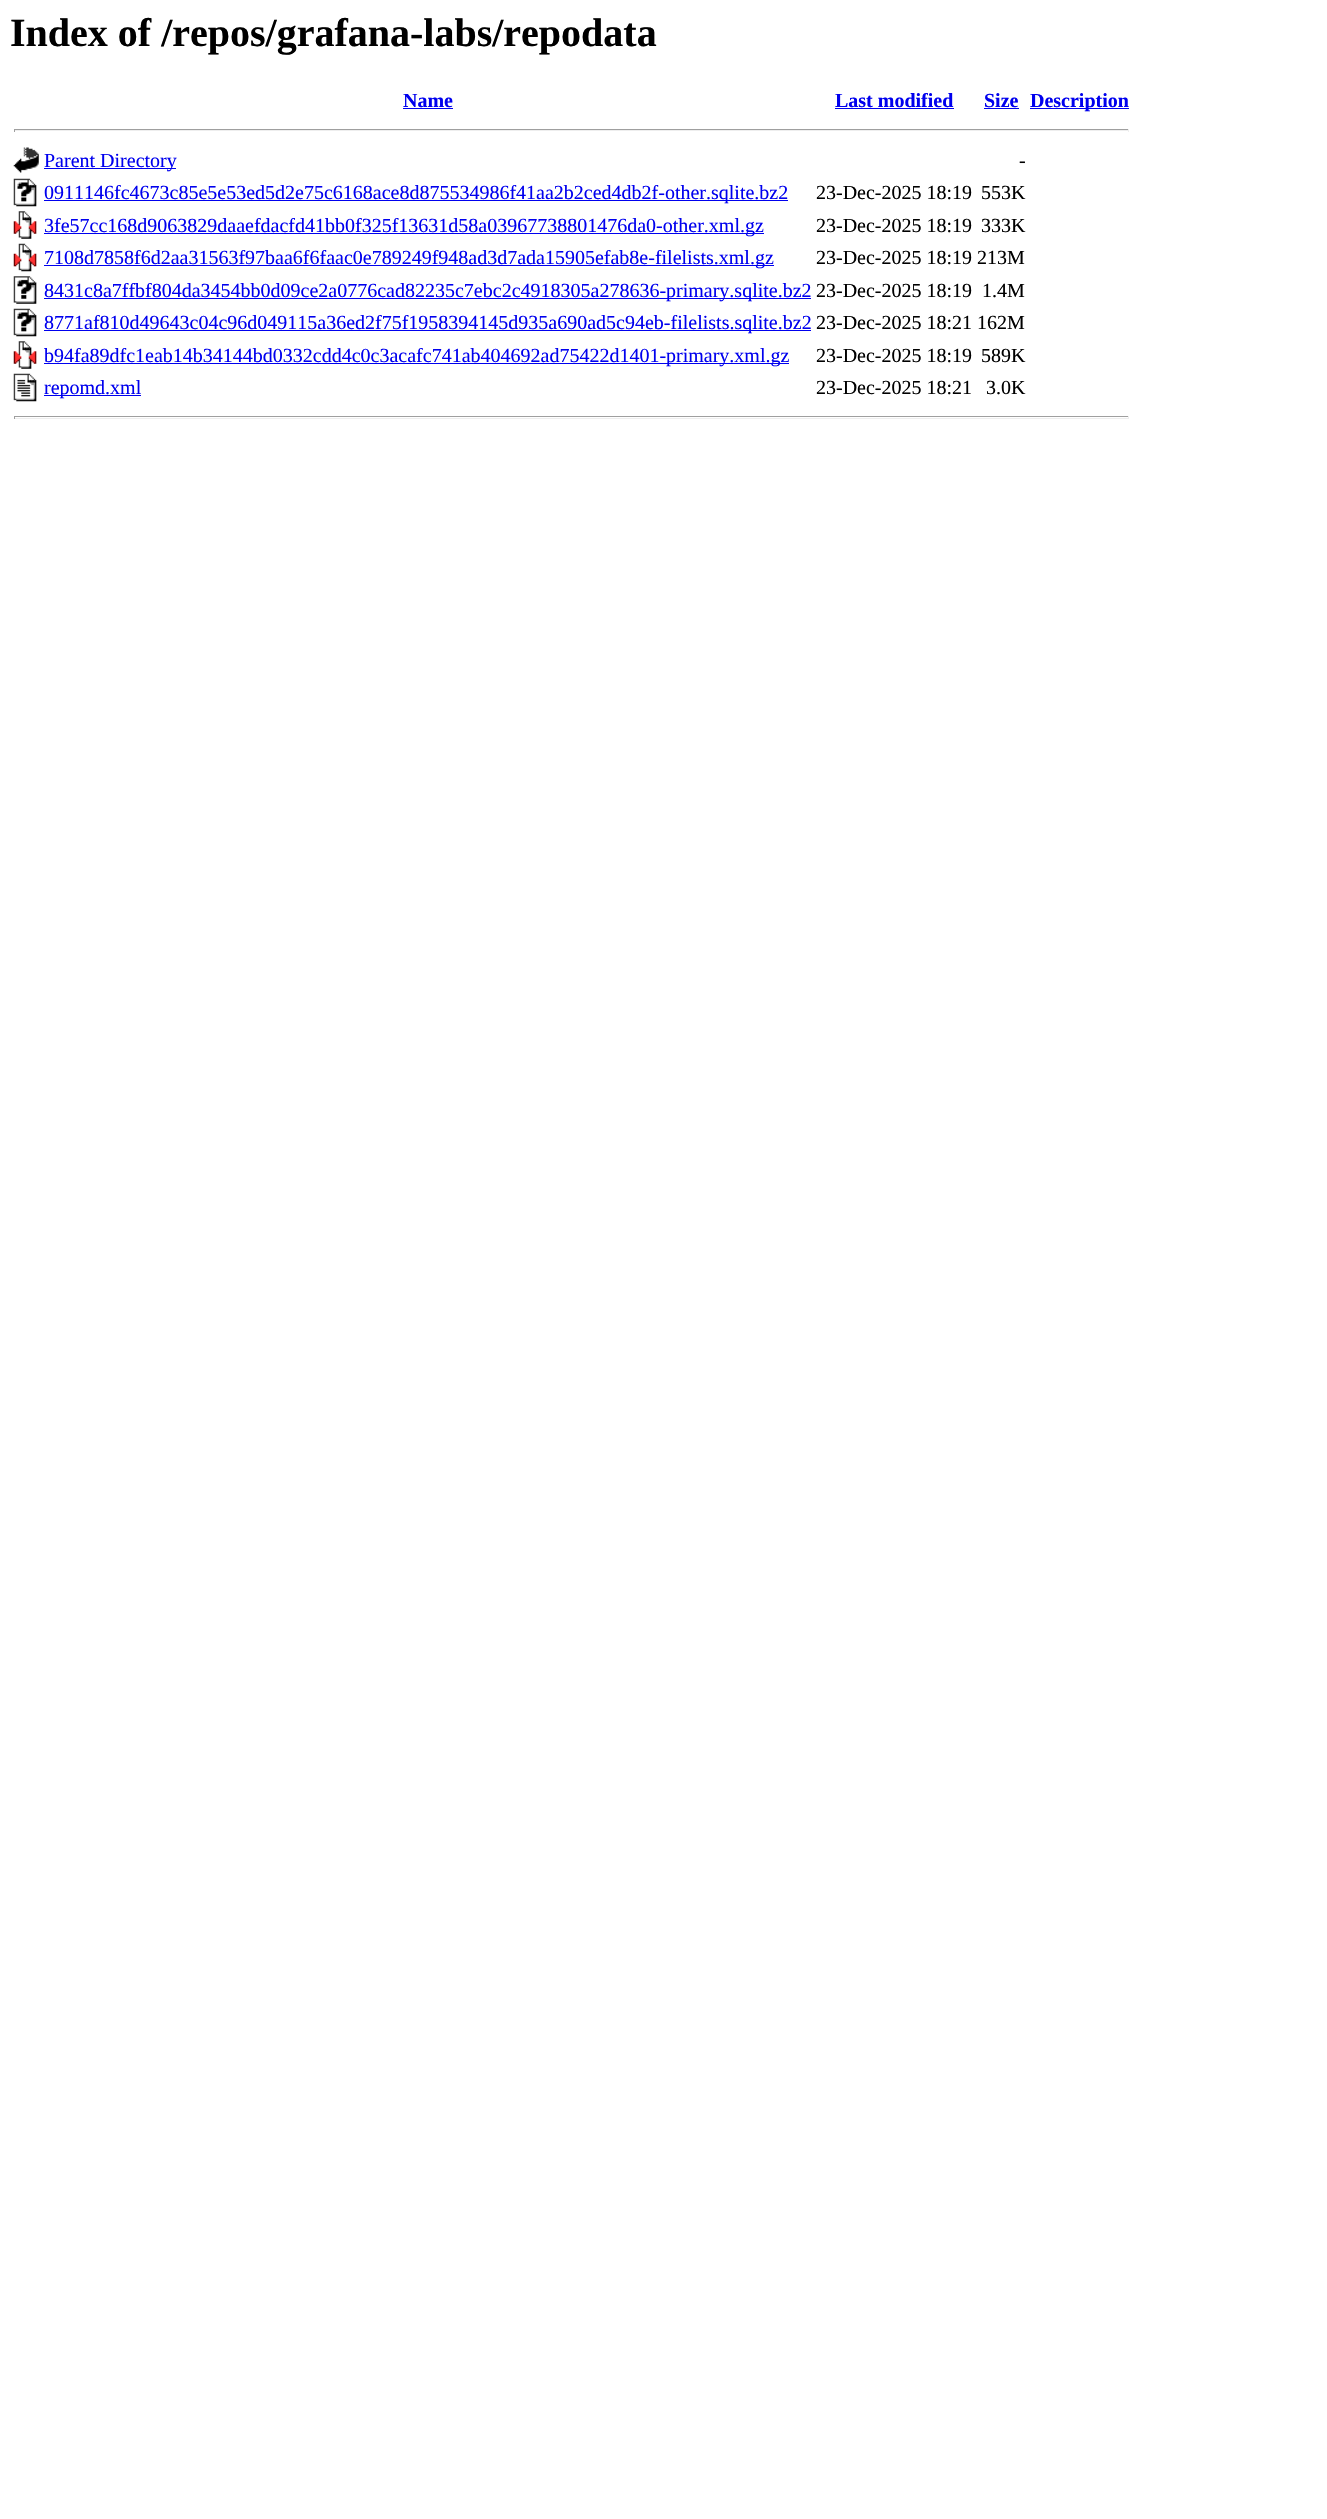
void draw(SkCanvas* canvas) {
	SkPaint fill;
	fill.setAntiAlias(true);
	auto makeFont = [&](const char* family, int weight, float size, bool italic = false) {
		SkFontStyle style(weight, SkFontStyle::kNormal_Width,
			italic ? SkFontStyle::kItalic_Slant : SkFontStyle::kUpright_Slant);
		SkFont result(fontMgr->matchFamilyStyle(family, style), size);
		result.setSubpixel(true);
		return result;
	};
	auto text = [&](const char* s, float x, float y, const SkFont& font) {
		canvas->drawString(s, x, y, font, fill);
	};
	auto box = [&](float l, float t, float r, float b) {
		canvas->drawRect(SkRect::MakeLTRB(l, t, r, b), fill);
	};
	auto picture = [&](const char* path, float l, float t, float r, float b) {
		auto image = SkImages::DeferredFromEncodedData(SkData::MakeFromFileName(path));
		canvas->drawImageRect(image, SkRect::MakeLTRB(l, t, r, b), SkSamplingOptions());
	};
	canvas->clear(0xFFFFFFFF);
	fill.setColor(0xFF0000EE);
	box(403, 108, 453, 109);
	box(835, 108, 954, 109);
	box(984, 108, 1019, 109);
	box(1030, 108, 1129, 109);
	fill.setColor(0xFF9F9F9F);
	box(14, 129, 1129, 130);
	fill.setColor(0xFFEEEEEE);
	box(1128, 129, 1129, 132);
	box(14, 130, 1129, 131);
	fill.setColor(0xFF9F9F9F);
	box(14, 129, 15, 132);
	picture("image0.png", 13, 147, 39, 173);
	fill.setColor(0xFF0000EE);
	box(44, 168, 176, 169);
	picture("image1.png", 13, 178, 37, 207);
	box(44, 200, 788, 201);
	picture("image2.png", 13, 211, 37, 239);
	box(44, 233, 764, 234);
	picture("image3.png", 13, 243, 37, 272);
	box(44, 265, 774, 266);
	picture("image4.png", 13, 276, 37, 304);
	box(44, 298, 811, 299);
	picture("image1.png", 13, 308, 37, 337);
	box(44, 330, 811, 331);
	picture("image2.png", 13, 341, 37, 369);
	box(44, 363, 789, 364);
	picture("image5.png", 13, 373, 37, 402);
	box(44, 395, 141, 396);
	fill.setColor(0xFF9F9F9F);
	box(14, 416, 1129, 417);
	fill.setColor(0xFFEEEEEE);
	box(1128, 416, 1129, 419);
	box(14, 418, 1129, 419);
	fill.setColor(0xFF9F9F9F);
	box(14, 416, 15, 419);
	auto font1 = makeFont("Liberation Serif", 700, 40);
	fill.setColor(0xFF000000);
	text("Index of /repos/grafana-labs/repodata", 10, 46, font1);
	auto font2 = makeFont("Liberation Serif", 700, 20);
	fill.setColor(0xFF0000EE);
	text("Name", 403, 107, font2);
	text("Last modified", 835, 107, font2);
	text("Size", 984, 107, font2);
	text("Description", 1030, 107, font2);
	auto font3 = makeFont("Liberation Serif", 400, 20);
	text("Parent Directory", 44, 167, font3);
	fill.setColor(0xFF000000);
	text("-", 1019, 167, font3);
	fill.setColor(0xFF0000EE);
	text("0911146fc4673c85e5e53ed5d2e75c6168ace8d875534986f41aa2b2ced4db2f-other.sqlite.bz2", 44, 199, font3);
	fill.setColor(0xFF000000);
	text("23-Dec-2025 18:19", 816, 199, font3);
	text("553K", 981, 199, font3);
	fill.setColor(0xFF0000EE);
	text("3fe57cc168d9063829daaefdacfd41bb0f325f13631d58a03967738801476da0-other.xml.gz", 44, 232, font3);
	fill.setColor(0xFF000000);
	text("23-Dec-2025 18:19", 816, 232, font3);
	text("333K", 981, 232, font3);
	fill.setColor(0xFF0000EE);
	text("7108d7858f6d2aa31563f97baa6f6faac0e789249f948ad3d7ada15905efab8e-filelists.xml.gz", 44, 264, font3);
	fill.setColor(0xFF000000);
	text("23-Dec-2025 18:19 213M", 816, 264, font3);
	fill.setColor(0xFF0000EE);
	text("8431c8a7ffbf804da3454bb0d09ce2a0776cad82235c7ebc2c4918305a278636-primary.sqlite.bz2", 44, 297, font3);
	fill.setColor(0xFF000000);
	text("23-Dec-2025 18:19", 816, 297, font3);
	text("1.4M", 982, 297, font3);
	fill.setColor(0xFF0000EE);
	text("8771af810d49643c04c96d049115a36ed2f75f1958394145d935a690ad5c94eb-filelists.sqlite.bz2", 44, 329, font3);
	fill.setColor(0xFF000000);
	text("23-Dec-2025 18:21 162M", 816, 329, font3);
	fill.setColor(0xFF0000EE);
	text("b94fa89dfc1eab14b34144bd0332cdd4c0c3acafc741ab404692ad75422d1401-primary.xml.gz", 44, 362, font3);
	fill.setColor(0xFF000000);
	text("23-Dec-2025 18:19", 816, 362, font3);
	text("589K", 981, 362, font3);
	fill.setColor(0xFF0000EE);
	text("repomd.xml", 44, 394, font3);
	fill.setColor(0xFF000000);
	text("23-Dec-2025 18:21", 816, 394, font3);
	text("3.0K", 986, 394, font3);
}
